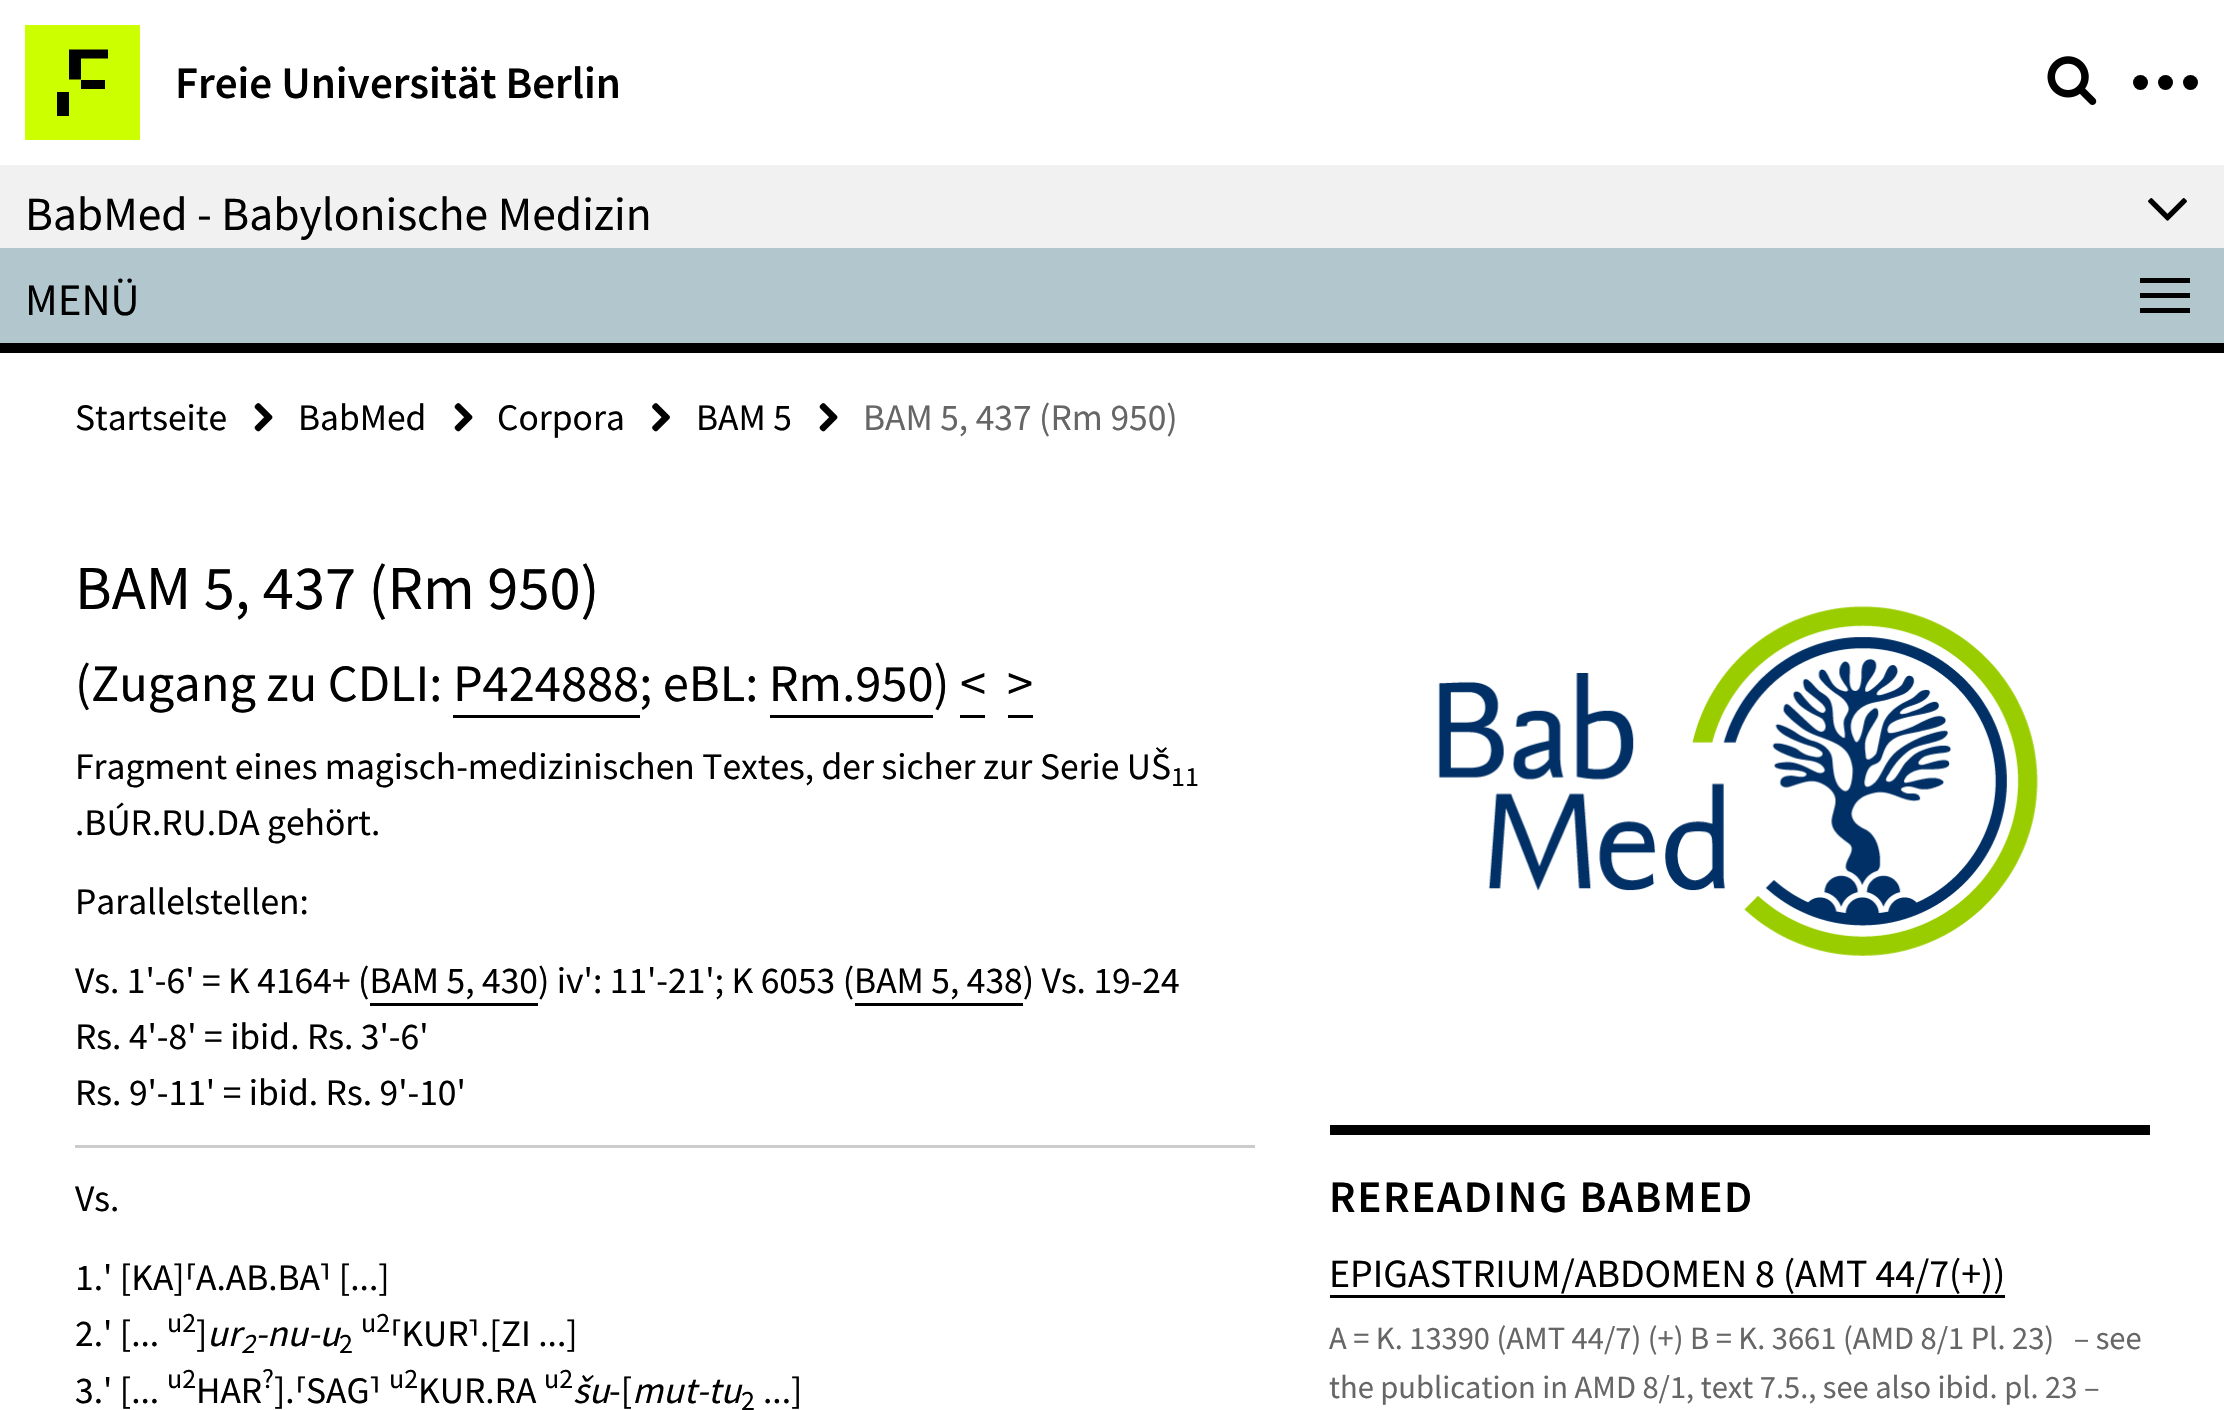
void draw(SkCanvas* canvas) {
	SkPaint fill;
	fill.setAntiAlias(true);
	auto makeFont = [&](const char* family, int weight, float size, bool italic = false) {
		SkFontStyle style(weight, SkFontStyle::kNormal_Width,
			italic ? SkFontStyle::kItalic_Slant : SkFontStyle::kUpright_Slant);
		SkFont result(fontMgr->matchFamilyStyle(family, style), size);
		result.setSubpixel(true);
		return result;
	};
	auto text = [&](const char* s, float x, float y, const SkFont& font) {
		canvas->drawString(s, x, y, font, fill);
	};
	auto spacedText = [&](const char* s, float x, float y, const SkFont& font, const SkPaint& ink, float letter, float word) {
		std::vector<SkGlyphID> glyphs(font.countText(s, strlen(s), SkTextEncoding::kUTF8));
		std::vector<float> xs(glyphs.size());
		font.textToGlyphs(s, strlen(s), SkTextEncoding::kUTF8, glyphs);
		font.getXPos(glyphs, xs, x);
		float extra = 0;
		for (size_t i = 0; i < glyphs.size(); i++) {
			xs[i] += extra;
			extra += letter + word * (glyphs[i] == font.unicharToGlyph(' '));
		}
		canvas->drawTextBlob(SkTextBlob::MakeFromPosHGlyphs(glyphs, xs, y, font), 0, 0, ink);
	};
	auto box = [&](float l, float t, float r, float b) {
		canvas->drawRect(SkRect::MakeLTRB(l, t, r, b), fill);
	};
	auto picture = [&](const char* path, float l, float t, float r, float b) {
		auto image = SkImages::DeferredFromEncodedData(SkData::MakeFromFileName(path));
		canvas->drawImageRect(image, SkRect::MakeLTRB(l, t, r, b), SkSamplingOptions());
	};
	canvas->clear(0xFFFFFFFF);
	fill.setColor(0xFFCCFF00);
	box(25, 25, 140, 140);
	fill.setColor(0xFF000000);
	canvas->drawPath(SkPathBuilder().moveTo(69, 49.5f).lineTo(108, 49.5f).lineTo(108, 58.5f).lineTo(81, 58.5f).lineTo(81, 79.5f).lineTo(69, 79.5f).close().detach(), fill);
	box(81, 80, 105, 89);
	box(57, 92, 69, 116);
	picture("image0.png", 2047, 56, 2097, 105);
	canvas->drawCircle(2140.5f, 82.5f, 7.5f, fill);
	canvas->drawCircle(2165.5f, 82.5f, 7.5f, fill);
	canvas->drawCircle(2190.5f, 82.5f, 7.5f, fill);
	fill.setColor(0xFFF1F1F1);
	box(0, 165, 2224, 248);
	picture("image1.png", 2148, 198, 2187, 221);
	fill.setColor(0xFFB2C7CD);
	box(0, 248, 2224, 343);
	fill.setColor(0xFF000000);
	box(0, 343, 2224, 353);
	box(2140, 278, 2190, 283);
	box(2140, 293, 2190, 298);
	box(2140, 308, 2190, 313);
	picture("image2.png", 254, 403, 273, 432);
	picture("image2.png", 454, 403, 473, 432);
	picture("image3.png", 652, 403, 670, 432);
	picture("image2.png", 819, 403, 838, 432);
	box(1008, 715, 1033, 718);
	box(453, 715, 640, 718);
	box(770, 715, 933, 718);
	box(960, 715, 985, 718);
	box(370, 1003, 538, 1006);
	box(855, 1003, 1023, 1006);
	fill.setColor(0xFFCCCCCC);
	box(75, 1145, 1255, 1148);
	picture("image4.png", 1438, 606, 2038, 956);
	fill.setColor(0xFF000000);
	box(1330, 1125, 2150, 1135);
	box(1330, 1295, 2005, 1298);
	auto font1 = makeFont("Source Sans Pro", 600, 45);
	text("Freie Universität Berlin", 175, 98, font1);
	auto font2 = makeFont("Source Sans Pro", 400, 47.5f);
	text("BabMed - Babylonische Medizin", 25, 230, font2);
	auto font3 = makeFont("Source Sans Pro", 400, 45);
	text("MENÜ", 25, 315, font3);
	auto font4 = makeFont("Source Sans Pro", 400, 37.5f);
	text("Startseite", 75, 430, font4);
	text("BabMed", 298, 430, font4);
	text("Corpora", 497, 430, font4);
	text("BAM 5", 696, 430, font4);
	fill.setColor(0xFF666666);
	text("BAM 5, 437 (Rm 950)", 863, 430, font4);
	auto font5 = makeFont("Source Sans Pro", 400, 62.5f);
	fill.setColor(0xFF000000);
	text("BAM 5, 437 (Rm 950)", 75, 609, font5);
	auto font6 = makeFont("Source Sans Pro", 400, 52.5f);
	text("(Zugang zu CDLI: P424888; eBL: Rm.950) <", 75, 701, font6);
	text(">", 1007, 701, font6);
	text("Fragment eines magisch-medizinischen Textes, der sicher zur Serie UŠ", 75, 779, font4);
	auto font7 = makeFont("Source Sans Pro", 400, 28);
	text("11", 1171, 786, font7);
	text(".BÚR.RU.DA gehört.", 75, 835, font4);
	text("Parallelstellen:", 75, 914, font4);
	text("Vs. 1'-6' = K 4164+ (BAM 5, 430) iv': 11'-21'; K 6053 (BAM 5, 438) Vs. 19-24", 75, 993, font4);
	text("Rs. 4'-8' = ibid. Rs. 3'-6'", 75, 1049, font4);
	text("Rs. 9'-11' = ibid. Rs. 9'-10'", 75, 1105, font4);
	text("Vs.", 75, 1211, font4);
	text("1.' [KA]⸢A.AB.BA⸣ [...]", 75, 1290, font4);
	text("2.' [...", 75, 1346, font4);
	text("u2", 167, 1332, font7);
	text("]", 196, 1346, font4);
	auto font8 = makeFont("Source Sans Pro", 400, 37.5f, true);
	text("ur", 207, 1346, font8);
	auto font9 = makeFont("Source Sans Pro", 400, 28, true);
	text("2", 241, 1353, font9);
	text("-nu-u", 255, 1346, font8);
	text("2", 339, 1353, font7);
	text("u2", 361, 1332, font7);
	text("⸢KUR⸣.[ZI ...]", 390, 1346, font4);
	text("3.' [...", 75, 1403, font4);
	text("u2", 167, 1388, font7);
	text("HAR", 196, 1403, font4);
	text("?", 262, 1388, font7);
	text("].⸢SAG⸣", 274, 1403, font4);
	text("u2", 389, 1388, font7);
	text("KUR.RA", 418, 1403, font4);
	text("u2", 544, 1388, font7);
	text("šu", 573, 1403, font8);
	text("-[", 609, 1403, font4);
	text("mut-tu", 632, 1403, font8);
	text("2", 741, 1410, font7);
	text("...]", 763, 1403, font4);
	spacedText("REREADING BABMED", 1329, 1212, font1, fill, 1.6f, 0);
	auto font10 = makeFont("Source Sans Pro", 400, 40);
	text("EPIGASTRIUM/ABDOMEN 8 (AMT 44/7(+))", 1329, 1287, font10);
	auto font11 = makeFont("Source Sans Pro", 400, 32.5f);
	fill.setColor(0xFF666666);
	text("A = K. 13390 (AMT 44/7) (+) B = K. 3661 (AMD 8/1 Pl. 23)   – see", 1329, 1349, font11);
	text("the publication in AMD 8/1, text 7.5., see also ibid. pl. 23 –", 1329, 1398, font11);
}
